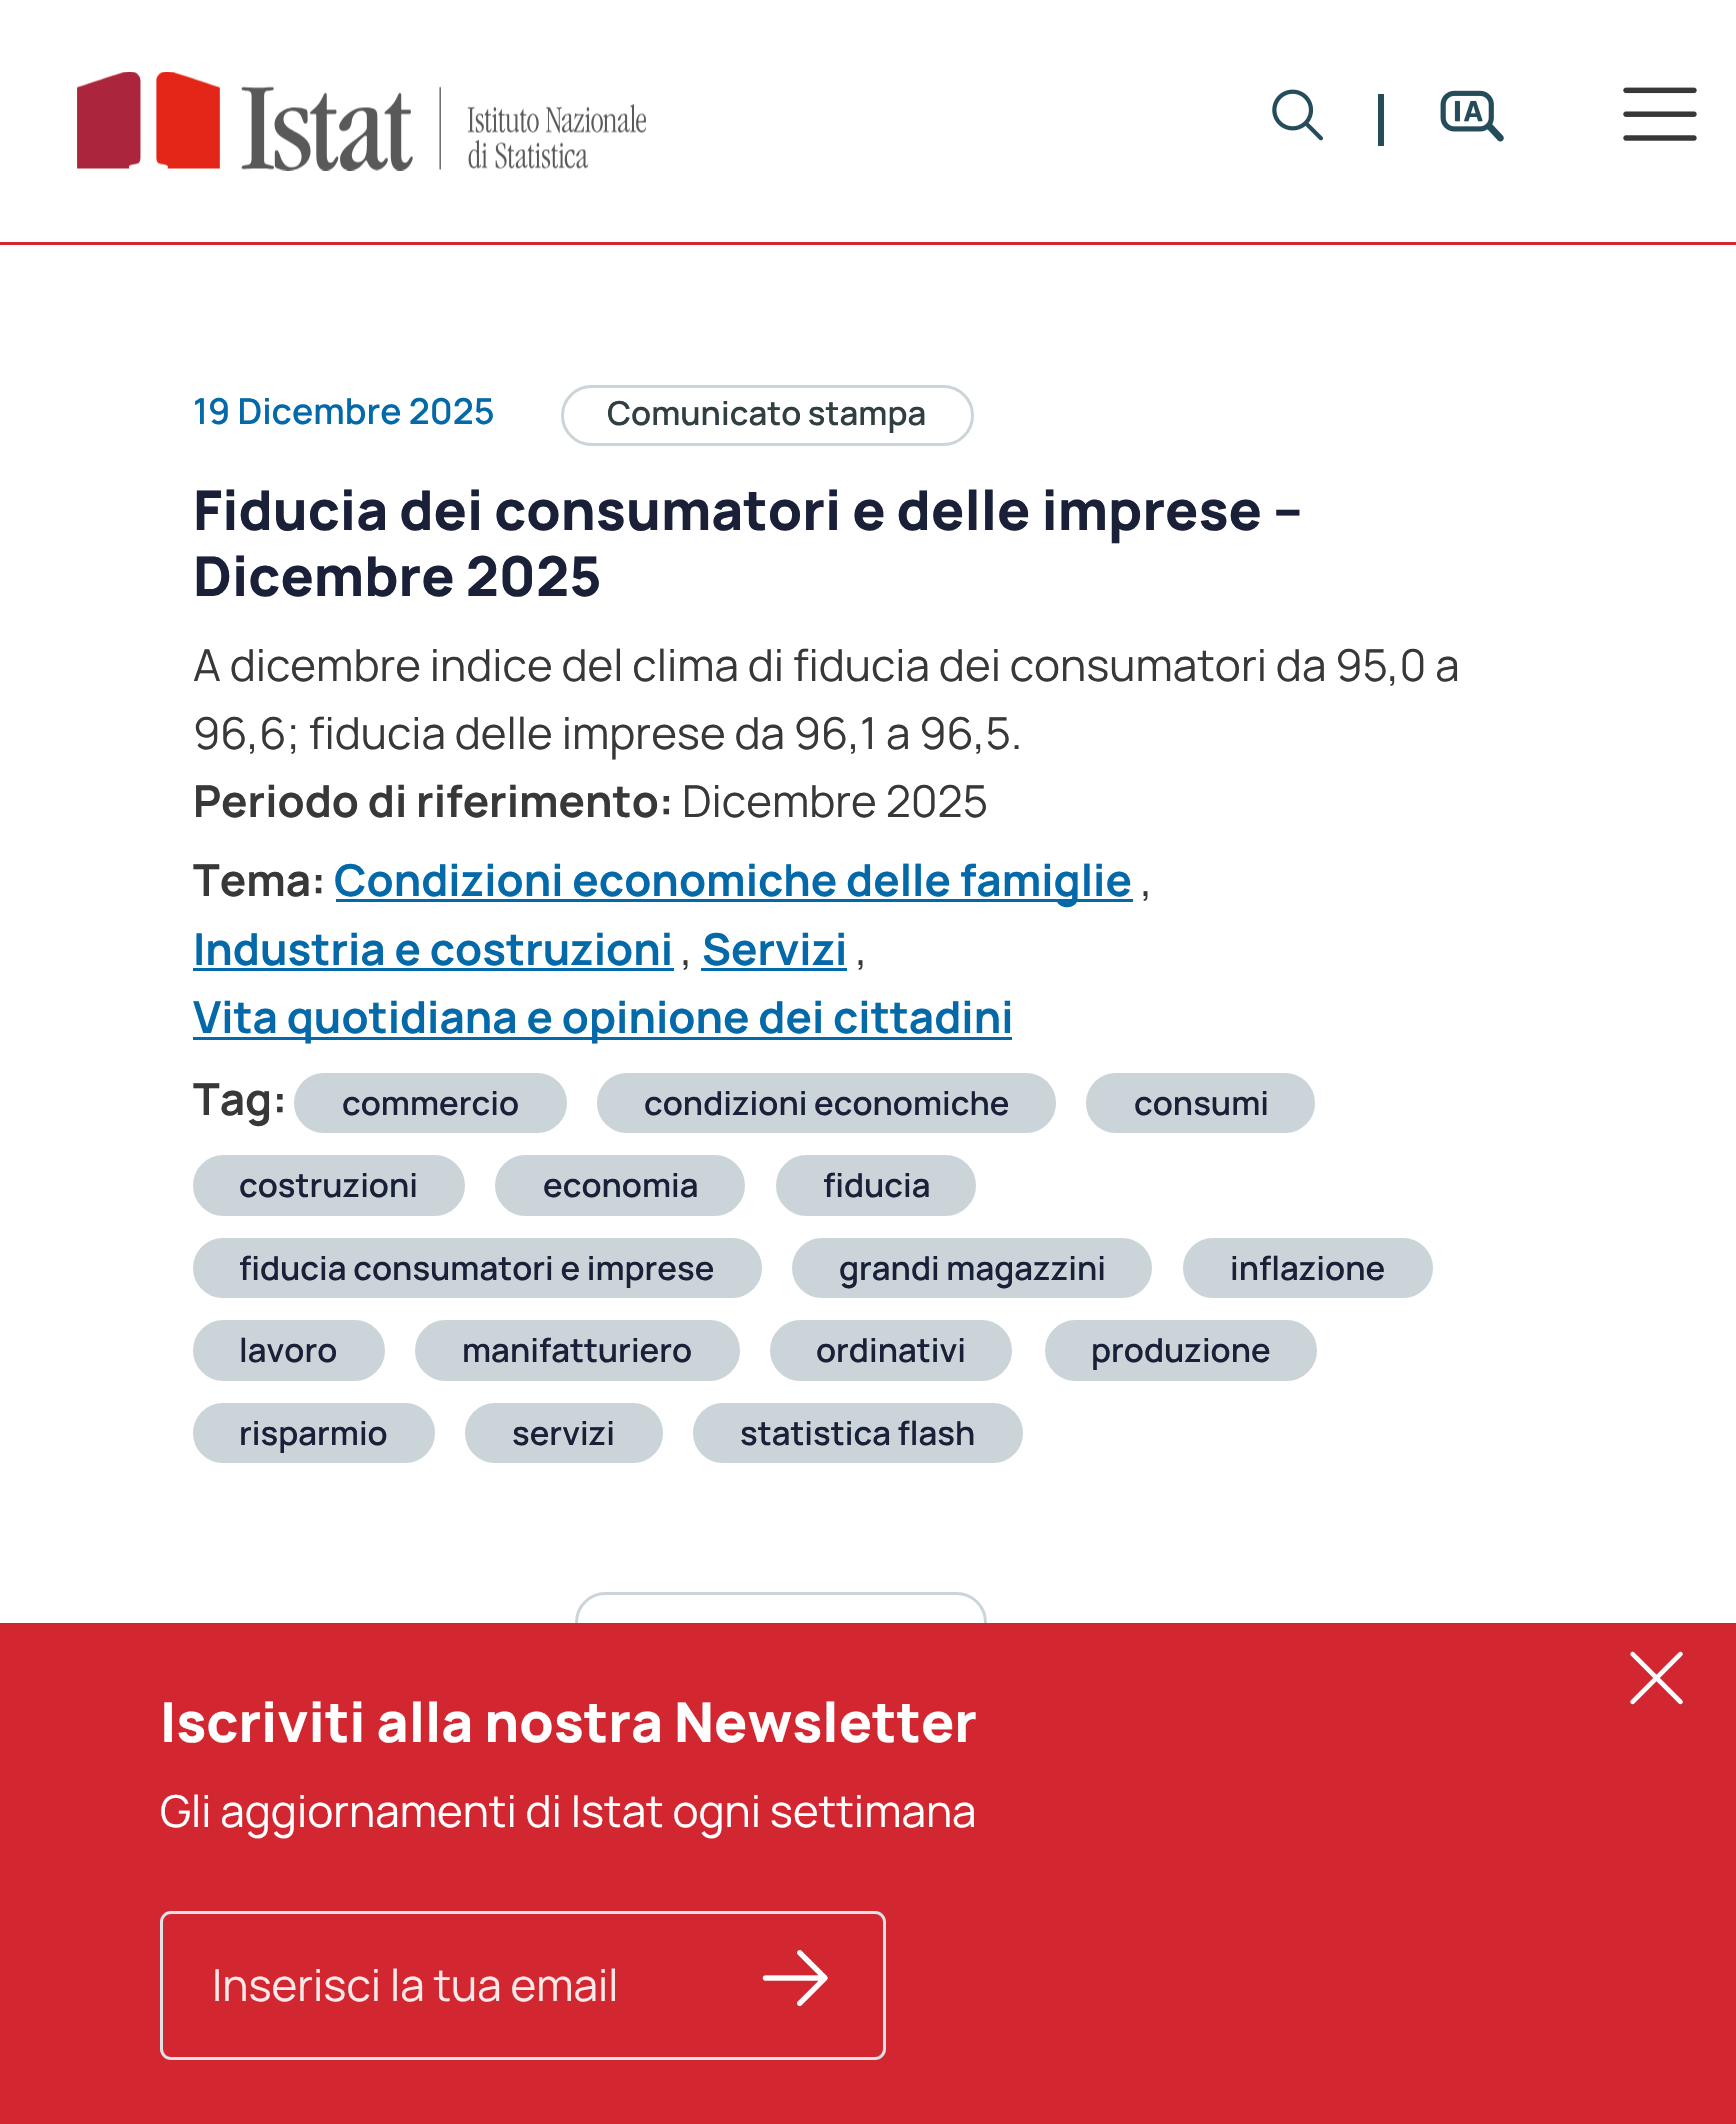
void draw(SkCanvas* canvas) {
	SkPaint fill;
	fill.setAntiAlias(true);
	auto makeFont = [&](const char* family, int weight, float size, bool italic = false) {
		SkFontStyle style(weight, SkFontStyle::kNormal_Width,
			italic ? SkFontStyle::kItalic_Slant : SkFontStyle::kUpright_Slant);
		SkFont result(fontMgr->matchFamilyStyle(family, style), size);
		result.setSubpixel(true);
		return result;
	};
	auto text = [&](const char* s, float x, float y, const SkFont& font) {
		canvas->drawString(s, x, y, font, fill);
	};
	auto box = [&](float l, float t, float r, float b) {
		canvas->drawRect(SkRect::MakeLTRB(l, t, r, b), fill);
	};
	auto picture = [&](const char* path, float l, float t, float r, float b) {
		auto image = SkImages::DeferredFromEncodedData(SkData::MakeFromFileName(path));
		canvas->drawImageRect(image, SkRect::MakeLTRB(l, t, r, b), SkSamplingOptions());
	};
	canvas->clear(0xFFFFFFFF);
	fill.setColor(0xFFD22630);
	box(0, 242, 1736, 245);
	picture("image0.png", 77, 72, 646, 171);
	picture("image1.png", 1272, 89, 1323, 141);
	fill.setColor(0xFF244C5A);
	box(1378, 94, 1384, 146);
	picture("image2.png", 1440, 90, 1504, 142);
	picture("image3.png", 1623, 87, 1697, 141);
	fill.setStyle(SkPaint::kStroke_Style);
	fill.setStrokeWidth(3);
	fill.setColor(0xFFCBD4D8);
	canvas->drawRoundRect(SkRect::MakeLTRB(562.5f, 386.5f, 972.5f, 444.5f), 29, 29, fill);
	fill.setStyle(SkPaint::kFill_Style);
	fill.setColor(0xFF0369A9);
	box(336, 899, 1133, 902);
	box(193, 968, 674, 971);
	box(701, 968, 847, 971);
	box(193, 1037, 1012, 1040);
	fill.setColor(0xFFCBD4D8);
	canvas->drawRoundRect(SkRect::MakeLTRB(295.5f, 1074.5f, 565.5f, 1131.5f), 28.5f, 28.5f, fill);
	fill.setStyle(SkPaint::kStroke_Style);
	canvas->drawRoundRect(SkRect::MakeLTRB(295.5f, 1074.5f, 565.5f, 1131.5f), 28.5f, 28.5f, fill);
	fill.setStyle(SkPaint::kFill_Style);
	canvas->drawRoundRect(SkRect::MakeLTRB(598.5f, 1074.5f, 1054.5f, 1131.5f), 28.5f, 28.5f, fill);
	fill.setStyle(SkPaint::kStroke_Style);
	canvas->drawRoundRect(SkRect::MakeLTRB(598.5f, 1074.5f, 1054.5f, 1131.5f), 28.5f, 28.5f, fill);
	fill.setStyle(SkPaint::kFill_Style);
	canvas->drawRoundRect(SkRect::MakeLTRB(1087.5f, 1074.5f, 1313.5f, 1131.5f), 28.5f, 28.5f, fill);
	fill.setStyle(SkPaint::kStroke_Style);
	canvas->drawRoundRect(SkRect::MakeLTRB(1087.5f, 1074.5f, 1313.5f, 1131.5f), 28.5f, 28.5f, fill);
	fill.setStyle(SkPaint::kFill_Style);
	canvas->drawRoundRect(SkRect::MakeLTRB(194.5f, 1156.5f, 463.5f, 1214.5f), 29, 29, fill);
	fill.setStyle(SkPaint::kStroke_Style);
	canvas->drawRoundRect(SkRect::MakeLTRB(194.5f, 1156.5f, 463.5f, 1214.5f), 29, 29, fill);
	fill.setStyle(SkPaint::kFill_Style);
	canvas->drawRoundRect(SkRect::MakeLTRB(496.5f, 1156.5f, 743.5f, 1214.5f), 29, 29, fill);
	fill.setStyle(SkPaint::kStroke_Style);
	canvas->drawRoundRect(SkRect::MakeLTRB(496.5f, 1156.5f, 743.5f, 1214.5f), 29, 29, fill);
	fill.setStyle(SkPaint::kFill_Style);
	canvas->drawRoundRect(SkRect::MakeLTRB(777.5f, 1156.5f, 974.5f, 1214.5f), 29, 29, fill);
	fill.setStyle(SkPaint::kStroke_Style);
	canvas->drawRoundRect(SkRect::MakeLTRB(777.5f, 1156.5f, 974.5f, 1214.5f), 29, 29, fill);
	fill.setStyle(SkPaint::kFill_Style);
	canvas->drawRoundRect(SkRect::MakeLTRB(194.5f, 1239.5f, 760.5f, 1296.5f), 28.5f, 28.5f, fill);
	fill.setStyle(SkPaint::kStroke_Style);
	canvas->drawRoundRect(SkRect::MakeLTRB(194.5f, 1239.5f, 760.5f, 1296.5f), 28.5f, 28.5f, fill);
	fill.setStyle(SkPaint::kFill_Style);
	canvas->drawRoundRect(SkRect::MakeLTRB(793.5f, 1239.5f, 1150.5f, 1296.5f), 28.5f, 28.5f, fill);
	fill.setStyle(SkPaint::kStroke_Style);
	canvas->drawRoundRect(SkRect::MakeLTRB(793.5f, 1239.5f, 1150.5f, 1296.5f), 28.5f, 28.5f, fill);
	fill.setStyle(SkPaint::kFill_Style);
	canvas->drawRoundRect(SkRect::MakeLTRB(1184.5f, 1239.5f, 1431.5f, 1296.5f), 28.5f, 28.5f, fill);
	fill.setStyle(SkPaint::kStroke_Style);
	canvas->drawRoundRect(SkRect::MakeLTRB(1184.5f, 1239.5f, 1431.5f, 1296.5f), 28.5f, 28.5f, fill);
	fill.setStyle(SkPaint::kFill_Style);
	canvas->drawRoundRect(SkRect::MakeLTRB(194.5f, 1321.5f, 383.5f, 1379.5f), 29, 29, fill);
	fill.setStyle(SkPaint::kStroke_Style);
	canvas->drawRoundRect(SkRect::MakeLTRB(194.5f, 1321.5f, 383.5f, 1379.5f), 29, 29, fill);
	fill.setStyle(SkPaint::kFill_Style);
	canvas->drawRoundRect(SkRect::MakeLTRB(416.5f, 1321.5f, 738.5f, 1379.5f), 29, 29, fill);
	fill.setStyle(SkPaint::kStroke_Style);
	canvas->drawRoundRect(SkRect::MakeLTRB(416.5f, 1321.5f, 738.5f, 1379.5f), 29, 29, fill);
	fill.setStyle(SkPaint::kFill_Style);
	canvas->drawRoundRect(SkRect::MakeLTRB(771.5f, 1321.5f, 1010.5f, 1379.5f), 29, 29, fill);
	fill.setStyle(SkPaint::kStroke_Style);
	canvas->drawRoundRect(SkRect::MakeLTRB(771.5f, 1321.5f, 1010.5f, 1379.5f), 29, 29, fill);
	fill.setStyle(SkPaint::kFill_Style);
	canvas->drawRoundRect(SkRect::MakeLTRB(1046.5f, 1321.5f, 1315.5f, 1379.5f), 29, 29, fill);
	fill.setStyle(SkPaint::kStroke_Style);
	canvas->drawRoundRect(SkRect::MakeLTRB(1046.5f, 1321.5f, 1315.5f, 1379.5f), 29, 29, fill);
	fill.setStyle(SkPaint::kFill_Style);
	canvas->drawRoundRect(SkRect::MakeLTRB(194.5f, 1404.5f, 433.5f, 1461.5f), 28.5f, 28.5f, fill);
	fill.setStyle(SkPaint::kStroke_Style);
	canvas->drawRoundRect(SkRect::MakeLTRB(194.5f, 1404.5f, 433.5f, 1461.5f), 28.5f, 28.5f, fill);
	fill.setStyle(SkPaint::kFill_Style);
	canvas->drawRoundRect(SkRect::MakeLTRB(466.5f, 1404.5f, 661.5f, 1461.5f), 28.5f, 28.5f, fill);
	fill.setStyle(SkPaint::kStroke_Style);
	canvas->drawRoundRect(SkRect::MakeLTRB(466.5f, 1404.5f, 661.5f, 1461.5f), 28.5f, 28.5f, fill);
	fill.setStyle(SkPaint::kFill_Style);
	canvas->drawRoundRect(SkRect::MakeLTRB(694.5f, 1404.5f, 1021.5f, 1461.5f), 28.5f, 28.5f, fill);
	fill.setStyle(SkPaint::kStroke_Style);
	canvas->drawRoundRect(SkRect::MakeLTRB(694.5f, 1404.5f, 1021.5f, 1461.5f), 28.5f, 28.5f, fill);
	canvas->drawRoundRect(SkRect::MakeLTRB(576.5f, 1593.5f, 985.5f, 1651.5f), 29, 29, fill);
	fill.setStyle(SkPaint::kFill_Style);
	fill.setColor(0xFFD22630);
	box(0, 1623, 1736, 2124);
	picture("image4.png", 1630, 1651, 1683, 1705);
	fill.setStyle(SkPaint::kStroke_Style);
	fill.setColor(0xFFDEE2E6);
	canvas->drawRoundRect(SkRect::MakeLTRB(161.5f, 1912.5f, 884.5f, 2058.5f), 9.5f, 9.5f, fill);
	picture("image5.png", 762, 1950, 828, 2006);
	auto font1 = makeFont("Manrope", 600, 35.75f);
	fill.setStyle(SkPaint::kFill_Style);
	fill.setColor(0xFF0369A9);
	text("19 Dicembre 2025", 193, 424, font1);
	auto font2 = makeFont("Manrope", 600, 33);
	fill.setColor(0xFF313E42);
	text("Comunicato stampa", 607, 425, font2);
	auto font3 = makeFont("Manrope", 800, 55);
	fill.setColor(0xFF192038);
	text("Fiducia dei consumatori e delle imprese –", 193, 530, font3);
	text("Dicembre 2025", 193, 596, font3);
	auto font4 = makeFont("Manrope", 400, 44);
	fill.setColor(0xFF383838);
	text("A dicembre indice del clima di fiducia dei consumatori da 95,0 a", 193, 681, font4);
	text("96,6; fiducia delle imprese da 96,1 a 96,5.", 193, 749, font4);
	auto font5 = makeFont("Manrope", 700, 44);
	text("Periodo di riferimento:", 193, 817, font5);
	text("Dicembre 2025", 682, 817, font4);
	text("Tema:", 193, 896, font5);
	fill.setColor(0xFF0369A9);
	text("Condizioni economiche delle famiglie", 334, 896, font5);
	fill.setColor(0xFF383838);
	text(",", 1141, 896, font4);
	fill.setColor(0xFF0369A9);
	text("Industria e costruzioni", 193, 965, font5);
	fill.setColor(0xFF383838);
	text(",", 681, 965, font4);
	fill.setColor(0xFF0369A9);
	text("Servizi", 702, 965, font5);
	fill.setColor(0xFF383838);
	text(",", 856, 965, font4);
	fill.setColor(0xFF0369A9);
	text("Vita quotidiana e opinione dei cittadini", 193, 1033, font5);
	fill.setColor(0xFF383838);
	text("Tag:", 193, 1115, font5);
	fill.setColor(0xFF192038);
	text("commercio", 342, 1115, font2);
	text("condizioni economiche", 644, 1115, font2);
	text("consumi", 1134, 1115, font2);
	text("costruzioni", 239, 1197, font2);
	text("economia", 543, 1197, font2);
	text("fiducia", 823, 1197, font2);
	text("fiducia consumatori e imprese", 239, 1280, font2);
	text("grandi magazzini", 839, 1280, font2);
	text("inflazione", 1230, 1280, font2);
	text("lavoro", 239, 1362, font2);
	text("manifatturiero", 462, 1362, font2);
	text("ordinativi", 816, 1362, font2);
	text("produzione", 1091, 1362, font2);
	text("risparmio", 239, 1445, font2);
	text("servizi", 512, 1445, font2);
	text("statistica flash", 740, 1445, font2);
	fill.setColor(0xFFFFFFFF);
	text("Iscriviti alla nostra Newsletter", 160, 1742, font3);
	text("Gli aggiornamenti di Istat ogni settimana", 160, 1827, font4);
	fill.setColor(0xFFFBE9EA);
	text("Inserisci la tua email", 212, 2001, font4);
}
